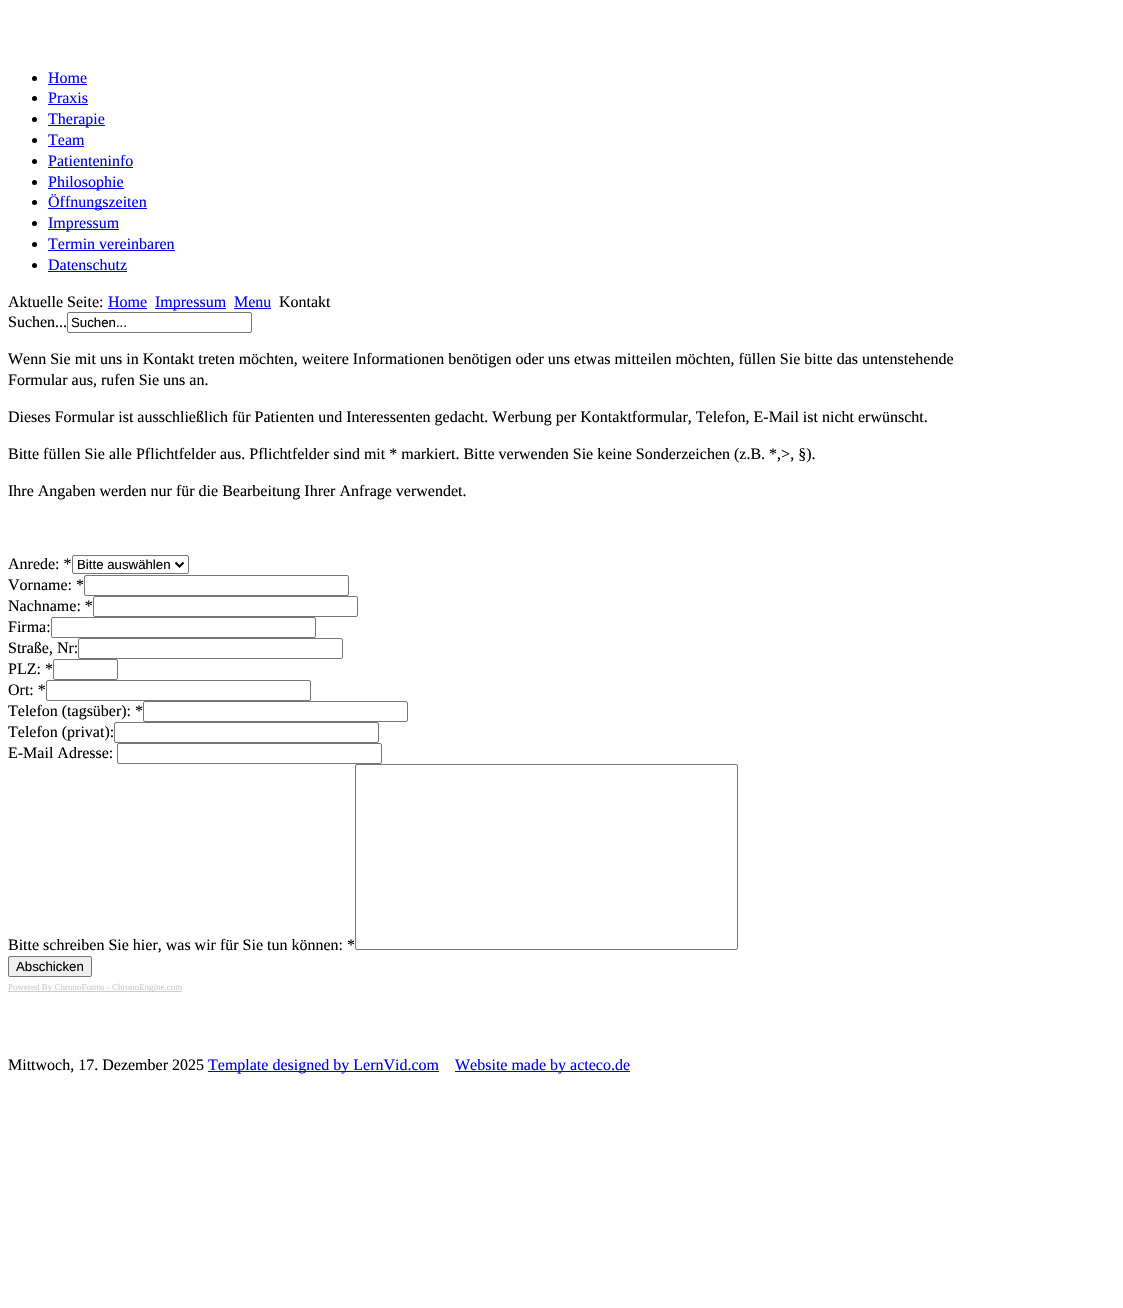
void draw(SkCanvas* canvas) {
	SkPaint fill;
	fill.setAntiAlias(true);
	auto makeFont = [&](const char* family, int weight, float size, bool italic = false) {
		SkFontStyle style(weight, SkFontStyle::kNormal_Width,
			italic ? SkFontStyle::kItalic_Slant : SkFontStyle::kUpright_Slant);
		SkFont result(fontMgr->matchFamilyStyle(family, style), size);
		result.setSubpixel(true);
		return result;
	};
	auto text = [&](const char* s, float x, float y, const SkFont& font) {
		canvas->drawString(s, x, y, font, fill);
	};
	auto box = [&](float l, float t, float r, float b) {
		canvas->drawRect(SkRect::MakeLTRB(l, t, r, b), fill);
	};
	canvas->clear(0xFFFFFFFF);
	fill.setColor(0xFF000000);
	canvas->drawCircle(34.5f, 78.5f, 2.5f, fill);
	fill.setColor(0xFF0000EE);
	box(48, 84, 87, 85);
	fill.setColor(0xFF000000);
	canvas->drawCircle(34.5f, 98.5f, 2.5f, fill);
	fill.setColor(0xFF0000EE);
	box(48, 104, 88, 105);
	fill.setColor(0xFF000000);
	canvas->drawCircle(34.5f, 119.5f, 2.5f, fill);
	fill.setColor(0xFF0000EE);
	box(48, 125, 105, 126);
	fill.setColor(0xFF000000);
	canvas->drawCircle(34.5f, 140.5f, 2.5f, fill);
	fill.setColor(0xFF0000EE);
	box(48, 146, 84, 147);
	fill.setColor(0xFF000000);
	canvas->drawCircle(34.5f, 161.5f, 2.5f, fill);
	fill.setColor(0xFF0000EE);
	box(48, 167, 133, 168);
	fill.setColor(0xFF000000);
	canvas->drawCircle(34.5f, 182.5f, 2.5f, fill);
	fill.setColor(0xFF0000EE);
	box(48, 188, 124, 189);
	fill.setColor(0xFF000000);
	canvas->drawCircle(34.5f, 202.5f, 2.5f, fill);
	fill.setColor(0xFF0000EE);
	box(48, 208, 147, 209);
	fill.setColor(0xFF000000);
	canvas->drawCircle(34.5f, 223.5f, 2.5f, fill);
	fill.setColor(0xFF0000EE);
	box(48, 229, 119, 230);
	fill.setColor(0xFF000000);
	canvas->drawCircle(34.5f, 244.5f, 2.5f, fill);
	fill.setColor(0xFF0000EE);
	box(48, 250, 175, 251);
	fill.setColor(0xFF000000);
	canvas->drawCircle(34.5f, 265.5f, 2.5f, fill);
	fill.setColor(0xFF0000EE);
	box(48, 271, 127, 272);
	box(108, 308, 147, 309);
	box(155, 308, 226, 309);
	box(234, 308, 271, 309);
	fill.setStyle(SkPaint::kStroke_Style);
	fill.setStrokeWidth(1);
	fill.setColor(0xFF767676);
	canvas->drawRoundRect(SkRect::MakeLTRB(67.5f, 312.5f, 251.5f, 332.5f), 1.5f, 1.5f, fill);
	canvas->drawRoundRect(SkRect::MakeLTRB(72.5f, 555.5f, 188.5f, 573.5f), 1.5f, 1.5f, fill);
	fill.setStrokeWidth(2);
	fill.setColor(0xFF000000);
	canvas->drawPath(SkPathBuilder().moveTo(175.5f, 562.5f).lineTo(179.5f, 566.5f).lineTo(183.5f, 562.5f).detach(), fill);
	fill.setStrokeWidth(1);
	fill.setColor(0xFF767676);
	canvas->drawRoundRect(SkRect::MakeLTRB(84.5f, 575.5f, 348.5f, 595.5f), 1.5f, 1.5f, fill);
	canvas->drawRoundRect(SkRect::MakeLTRB(93.5f, 596.5f, 357.5f, 616.5f), 1.5f, 1.5f, fill);
	canvas->drawRoundRect(SkRect::MakeLTRB(51.5f, 617.5f, 315.5f, 637.5f), 1.5f, 1.5f, fill);
	canvas->drawRoundRect(SkRect::MakeLTRB(78.5f, 638.5f, 342.5f, 658.5f), 1.5f, 1.5f, fill);
	canvas->drawRoundRect(SkRect::MakeLTRB(53.5f, 659.5f, 117.5f, 679.5f), 1.5f, 1.5f, fill);
	canvas->drawRoundRect(SkRect::MakeLTRB(46.5f, 680.5f, 310.5f, 700.5f), 1.5f, 1.5f, fill);
	canvas->drawRoundRect(SkRect::MakeLTRB(143.5f, 701.5f, 407.5f, 721.5f), 1.5f, 1.5f, fill);
	canvas->drawRoundRect(SkRect::MakeLTRB(114.5f, 722.5f, 378.5f, 742.5f), 1.5f, 1.5f, fill);
	canvas->drawRoundRect(SkRect::MakeLTRB(117.5f, 743.5f, 381.5f, 763.5f), 1.5f, 1.5f, fill);
	canvas->drawRoundRect(SkRect::MakeLTRB(355.5f, 764.5f, 737.5f, 949.5f), 1.5f, 1.5f, fill);
	fill.setStyle(SkPaint::kFill_Style);
	fill.setColor(0xFFEFEFEF);
	canvas->drawRoundRect(SkRect::MakeLTRB(8.5f, 956.5f, 91.5f, 976.5f), 1.5f, 1.5f, fill);
	fill.setStyle(SkPaint::kStroke_Style);
	fill.setColor(0xFF767676);
	canvas->drawRoundRect(SkRect::MakeLTRB(8.5f, 956.5f, 91.5f, 976.5f), 1.5f, 1.5f, fill);
	fill.setStyle(SkPaint::kFill_Style);
	fill.setColor(0xFFCCCCCC);
	box(8, 991, 182, 992);
	fill.setColor(0xFF0000EE);
	box(208, 1071, 439, 1072);
	box(455, 1071, 630, 1072);
	auto font1 = makeFont("Liberation Serif", 400, 16);
	text("Home", 48, 83, font1);
	text("Praxis", 48, 103, font1);
	text("Therapie", 48, 124, font1);
	text("Team", 48, 145, font1);
	text("Patienteninfo", 48, 166, font1);
	text("Philosophie", 48, 187, font1);
	text("Öffnungszeiten", 48, 207, font1);
	text("Impressum", 48, 228, font1);
	text("Termin vereinbaren", 48, 249, font1);
	text("Datenschutz", 48, 270, font1);
	fill.setColor(0xFF000000);
	text("Aktuelle Seite:", 8, 307, font1);
	fill.setColor(0xFF0000EE);
	text("Home", 108, 307, font1);
	text("Impressum", 155, 307, font1);
	text("Menu", 234, 307, font1);
	fill.setColor(0xFF000000);
	text("Kontakt", 279, 307, font1);
	text("Suchen...", 8, 327, font1);
	auto font2 = makeFont("Liberation Sans", 400, 13.25f);
	text("Suchen...", 71, 327, font2);
	text("Wenn Sie mit uns in Kontakt treten möchten, weitere Informationen benötigen oder uns etwas mitteilen möchten, füllen Sie bitte das untenstehende", 8, 364, font1);
	text("Formular aus, rufen Sie uns an.", 8, 385, font1);
	text("Dieses Formular ist ausschließlich für Patienten und Interessenten gedacht. Werbung per Kontaktformular, Telefon, E-Mail ist nicht erwünscht.", 8, 422, font1);
	text("Bitte füllen Sie alle Pflichtfelder aus. Pflichtfelder sind mit * markiert. Bitte verwenden Sie keine Sonderzeichen (z.B. *,>, §).", 8, 459, font1);
	text("Ihre Angaben werden nur für die Bearbeitung Ihrer Anfrage verwendet.", 8, 496, font1);
	text("Anrede: *", 8, 569, font1);
	text("Bitte auswählen", 77, 569, font2);
	text("Vorname: *", 8, 590, font1);
	text("Nachname: *", 8, 611, font1);
	text("Firma:", 8, 632, font1);
	text("Straße, Nr:", 8, 653, font1);
	text("PLZ: *", 8, 674, font1);
	text("Ort: *", 8, 695, font1);
	text("Telefon (tagsüber): *", 8, 716, font1);
	text("Telefon (privat):", 8, 737, font1);
	text("E-Mail Adresse:", 8, 758, font1);
	text("Bitte schreiben Sie hier, was wir für Sie tun können: *", 8, 950, font1);
	text("Abschicken", 16, 971, font2);
	auto font3 = makeFont("Liberation Serif", 400, 9);
	fill.setColor(0xFFCCCCCC);
	text("Powered By ChronoForms - ChronoEngine.com", 8, 990, font3);
	fill.setColor(0xFF000000);
	text("Mittwoch, 17. Dezember 2025", 8, 1070, font1);
	fill.setColor(0xFF0000EE);
	text("Template designed by LernVid.com", 208, 1070, font1);
	text("Website made by acteco.de", 455, 1070, font1);
}
